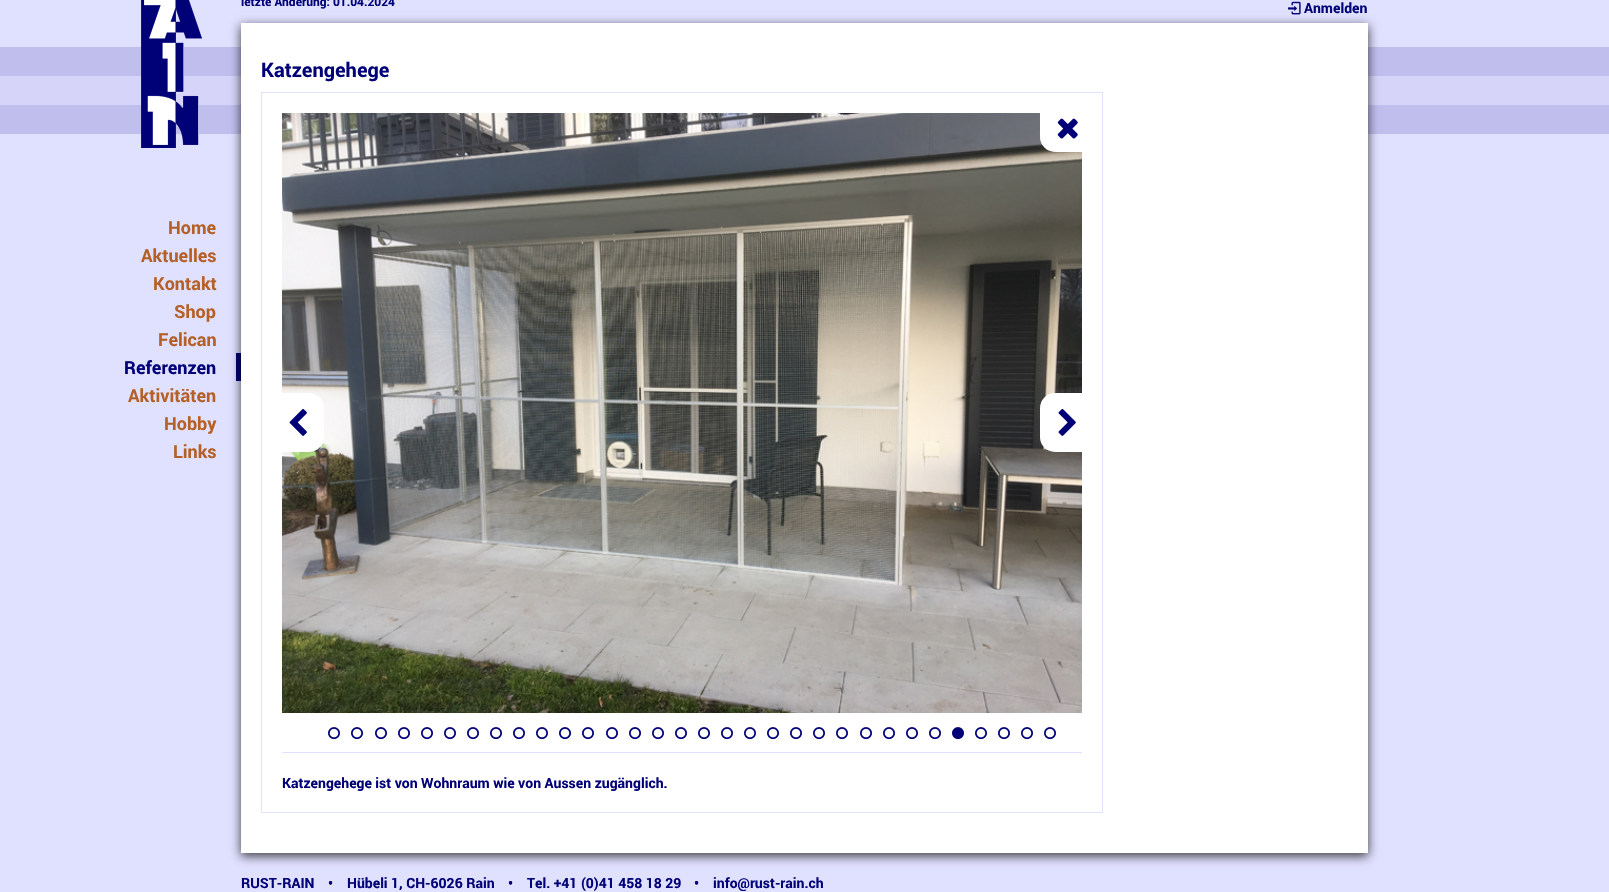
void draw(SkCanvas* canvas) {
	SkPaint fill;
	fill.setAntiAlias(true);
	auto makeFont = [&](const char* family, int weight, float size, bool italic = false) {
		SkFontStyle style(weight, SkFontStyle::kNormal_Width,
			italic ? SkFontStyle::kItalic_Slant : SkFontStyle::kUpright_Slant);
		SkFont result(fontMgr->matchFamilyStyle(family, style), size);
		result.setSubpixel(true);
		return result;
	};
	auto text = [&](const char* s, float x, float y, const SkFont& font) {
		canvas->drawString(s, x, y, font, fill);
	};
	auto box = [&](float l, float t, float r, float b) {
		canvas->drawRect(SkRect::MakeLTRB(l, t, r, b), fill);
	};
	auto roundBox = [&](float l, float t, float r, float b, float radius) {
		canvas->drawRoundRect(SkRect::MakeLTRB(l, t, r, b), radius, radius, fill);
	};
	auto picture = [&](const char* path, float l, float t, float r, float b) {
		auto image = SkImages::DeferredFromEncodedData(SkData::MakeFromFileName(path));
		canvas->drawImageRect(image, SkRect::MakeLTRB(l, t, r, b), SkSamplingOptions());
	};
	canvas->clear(0xFFE0E0FF);
	fill.setColor(0xFFC0BEED);
	box(0, 47, 1609, 76);
	fill.setColor(0xFFD6D5F9);
	box(0, 76, 1609, 105);
	fill.setColor(0xFFC0BEED);
	box(0, 105, 1609, 134);
	fill.setColor(0xFF000077);
	box(236, 353, 241, 381);
	fill.setColor(0xBF000000);
	fill.setMaskFilter(SkMaskFilter::MakeBlur(kNormal_SkBlurStyle, 5));
	canvas->drawRect(SkRect::MakeLTRB(241, 26, 1368, 856), fill);
	fill.setMaskFilter(nullptr);
	fill.setColor(0xFFFFFFFF);
	box(241, 23, 1368, 853);
	fill.setStyle(SkPaint::kStroke_Style);
	fill.setStrokeWidth(1);
	fill.setColor(0xFFE0E0FF);
	canvas->drawRect(SkRect::MakeLTRB(261.5f, 92.5f, 1102.5f, 812.5f), fill);
	picture("image1.png", 282, 113, 1082, 713);
	fill.setStyle(SkPaint::kFill_Style);
	fill.setColor(0xFFFFFFFF);
	roundBox(1040, 93, 1102, 152, 15);
	picture("image0.png", 1057, 118, 1078, 139);
	roundBox(262, 393, 324, 452, 15);
	picture("image2.png", 289, 409, 307, 436);
	roundBox(1040, 393, 1102, 452, 15);
	picture("image3.png", 1058, 408, 1076, 436);
	picture("image4.png", 328, 727, 340, 740);
	picture("image4.png", 351, 727, 363, 740);
	picture("image4.png", 375, 727, 387, 740);
	picture("image4.png", 398, 727, 410, 740);
	picture("image4.png", 421, 727, 433, 740);
	picture("image4.png", 444, 727, 456, 740);
	picture("image4.png", 467, 727, 479, 740);
	picture("image4.png", 490, 727, 502, 740);
	picture("image4.png", 513, 727, 525, 740);
	picture("image4.png", 536, 727, 548, 740);
	picture("image4.png", 559, 727, 571, 740);
	picture("image4.png", 582, 727, 594, 740);
	picture("image4.png", 606, 727, 618, 740);
	picture("image4.png", 629, 727, 641, 740);
	picture("image4.png", 652, 727, 664, 740);
	picture("image4.png", 675, 727, 687, 740);
	picture("image4.png", 698, 727, 710, 740);
	picture("image4.png", 721, 727, 733, 740);
	picture("image4.png", 744, 727, 756, 740);
	picture("image4.png", 767, 727, 779, 740);
	picture("image4.png", 790, 727, 802, 740);
	picture("image4.png", 813, 727, 825, 740);
	picture("image4.png", 836, 727, 848, 740);
	picture("image4.png", 860, 727, 872, 740);
	picture("image4.png", 883, 727, 895, 740);
	picture("image4.png", 906, 727, 918, 740);
	picture("image4.png", 929, 727, 941, 740);
	picture("image5.png", 952, 727, 964, 740);
	picture("image4.png", 975, 727, 987, 740);
	picture("image4.png", 998, 727, 1010, 740);
	picture("image4.png", 1021, 727, 1033, 740);
	picture("image4.png", 1044, 727, 1056, 740);
	fill.setColor(0xFFE0E0FF);
	box(282, 752, 1082, 753);
	picture("image6.png", 141, 0, 203, 148);
	picture("image7.png", 1288, 1, 1301, 15);
	auto font1 = makeFont("Roboto", 700, 12);
	fill.setColor(0xFF000077);
	text("letzte Änderung: 01.04.2024", 241, 6, font1);
	auto font2 = makeFont("Roboto", 700, 20);
	text("Katzengehege", 261, 77, font2);
	auto font3 = makeFont("Roboto", 700, 14);
	text("Katzengehege ist von Wohnraum wie von Aussen zugänglich.", 282, 788, font3);
	text("RUST-RAIN", 241, 888, font3);
	text("•", 328, 888, font3);
	text("Hübeli 1, CH-6026 Rain", 347, 888, font3);
	text("•", 508, 888, font3);
	text("Tel. +41 (0)41 458 18 29", 527, 888, font3);
	text("•", 694, 888, font3);
	text("info@rust-rain.ch", 713, 888, font3);
	text("Anmelden", 1304, 13, font3);
	auto font4 = makeFont("Roboto", 700, 18);
	fill.setColor(0xFFB56026);
	text("Home", 168, 234, font4);
	text("Aktuelles", 141, 262, font4);
	text("Kontakt", 153, 290, font4);
	text("Shop", 174, 318, font4);
	text("Felican", 158, 346, font4);
	fill.setColor(0xFF000077);
	text("Referenzen", 124, 374, font4);
	fill.setColor(0xFFB56026);
	text("Aktivitäten", 128, 402, font4);
	text("Hobby", 164, 430, font4);
	text("Links", 173, 458, font4);
}
